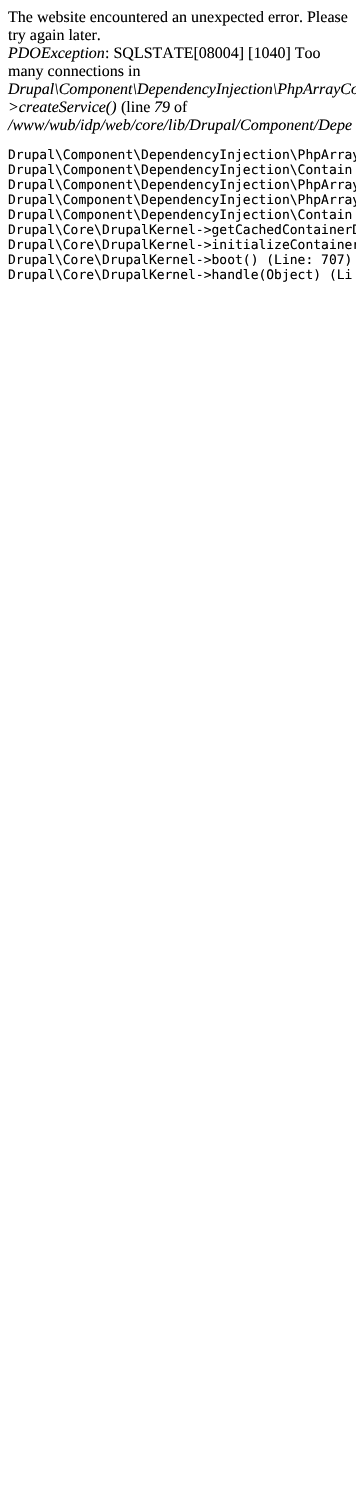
void draw(SkCanvas* canvas) {
	SkPaint fill;
	fill.setAntiAlias(true);
	auto makeFont = [&](const char* family, int weight, float size, bool italic = false) {
		SkFontStyle style(weight, SkFontStyle::kNormal_Width,
			italic ? SkFontStyle::kItalic_Slant : SkFontStyle::kUpright_Slant);
		SkFont result(fontMgr->matchFamilyStyle(family, style), size);
		result.setSubpixel(true);
		return result;
	};
	auto text = [&](const char* s, float x, float y, const SkFont& font) {
		canvas->drawString(s, x, y, font, fill);
	};
	canvas->clear(0xFFFFFFFF);
	auto font1 = makeFont("Liberation Serif", 400, 16);
	fill.setColor(0xFF000000);
	text("The website encountered an unexpected error. Please", 8, 22, font1);
	text("try again later.", 8, 40, font1);
	auto font2 = makeFont("Liberation Serif", 400, 16, true);
	text("PDOException", 8, 58, font2);
	text(": SQLSTATE[08004] [1040] Too", 105, 58, font1);
	text("many connections in", 8, 76, font1);
	text("Drupal\\Component\\DependencyInjection\\PhpArrayCo", 8, 94, font2);
	text(">createService()", 8, 112, font2);
	text("(line", 121, 112, font1);
	text("79", 154, 112, font2);
	text("of", 174, 112, font1);
	text("/www/wub/idp/web/core/lib/Drupal/Component/Depe", 8, 130, font2);
	auto font3 = makeFont("DejaVu Sans Mono", 400, 13);
	text("Drupal\\Component\\DependencyInjection\\PhpArray", 8, 159, font3);
	text("Drupal\\Component\\DependencyInjection\\Contain", 8, 174, font3);
	text("Drupal\\Component\\DependencyInjection\\PhpArray", 8, 189, font3);
	text("Drupal\\Component\\DependencyInjection\\PhpArray", 8, 204, font3);
	text("Drupal\\Component\\DependencyInjection\\Contain", 8, 219, font3);
	text("Drupal\\Core\\DrupalKernel->getCachedContainerD", 8, 234, font3);
	text("Drupal\\Core\\DrupalKernel->initializeContainer", 8, 249, font3);
	text("Drupal\\Core\\DrupalKernel->boot() (Line: 707)", 8, 264, font3);
	text("Drupal\\Core\\DrupalKernel->handle(Object) (Li", 8, 279, font3);
}
